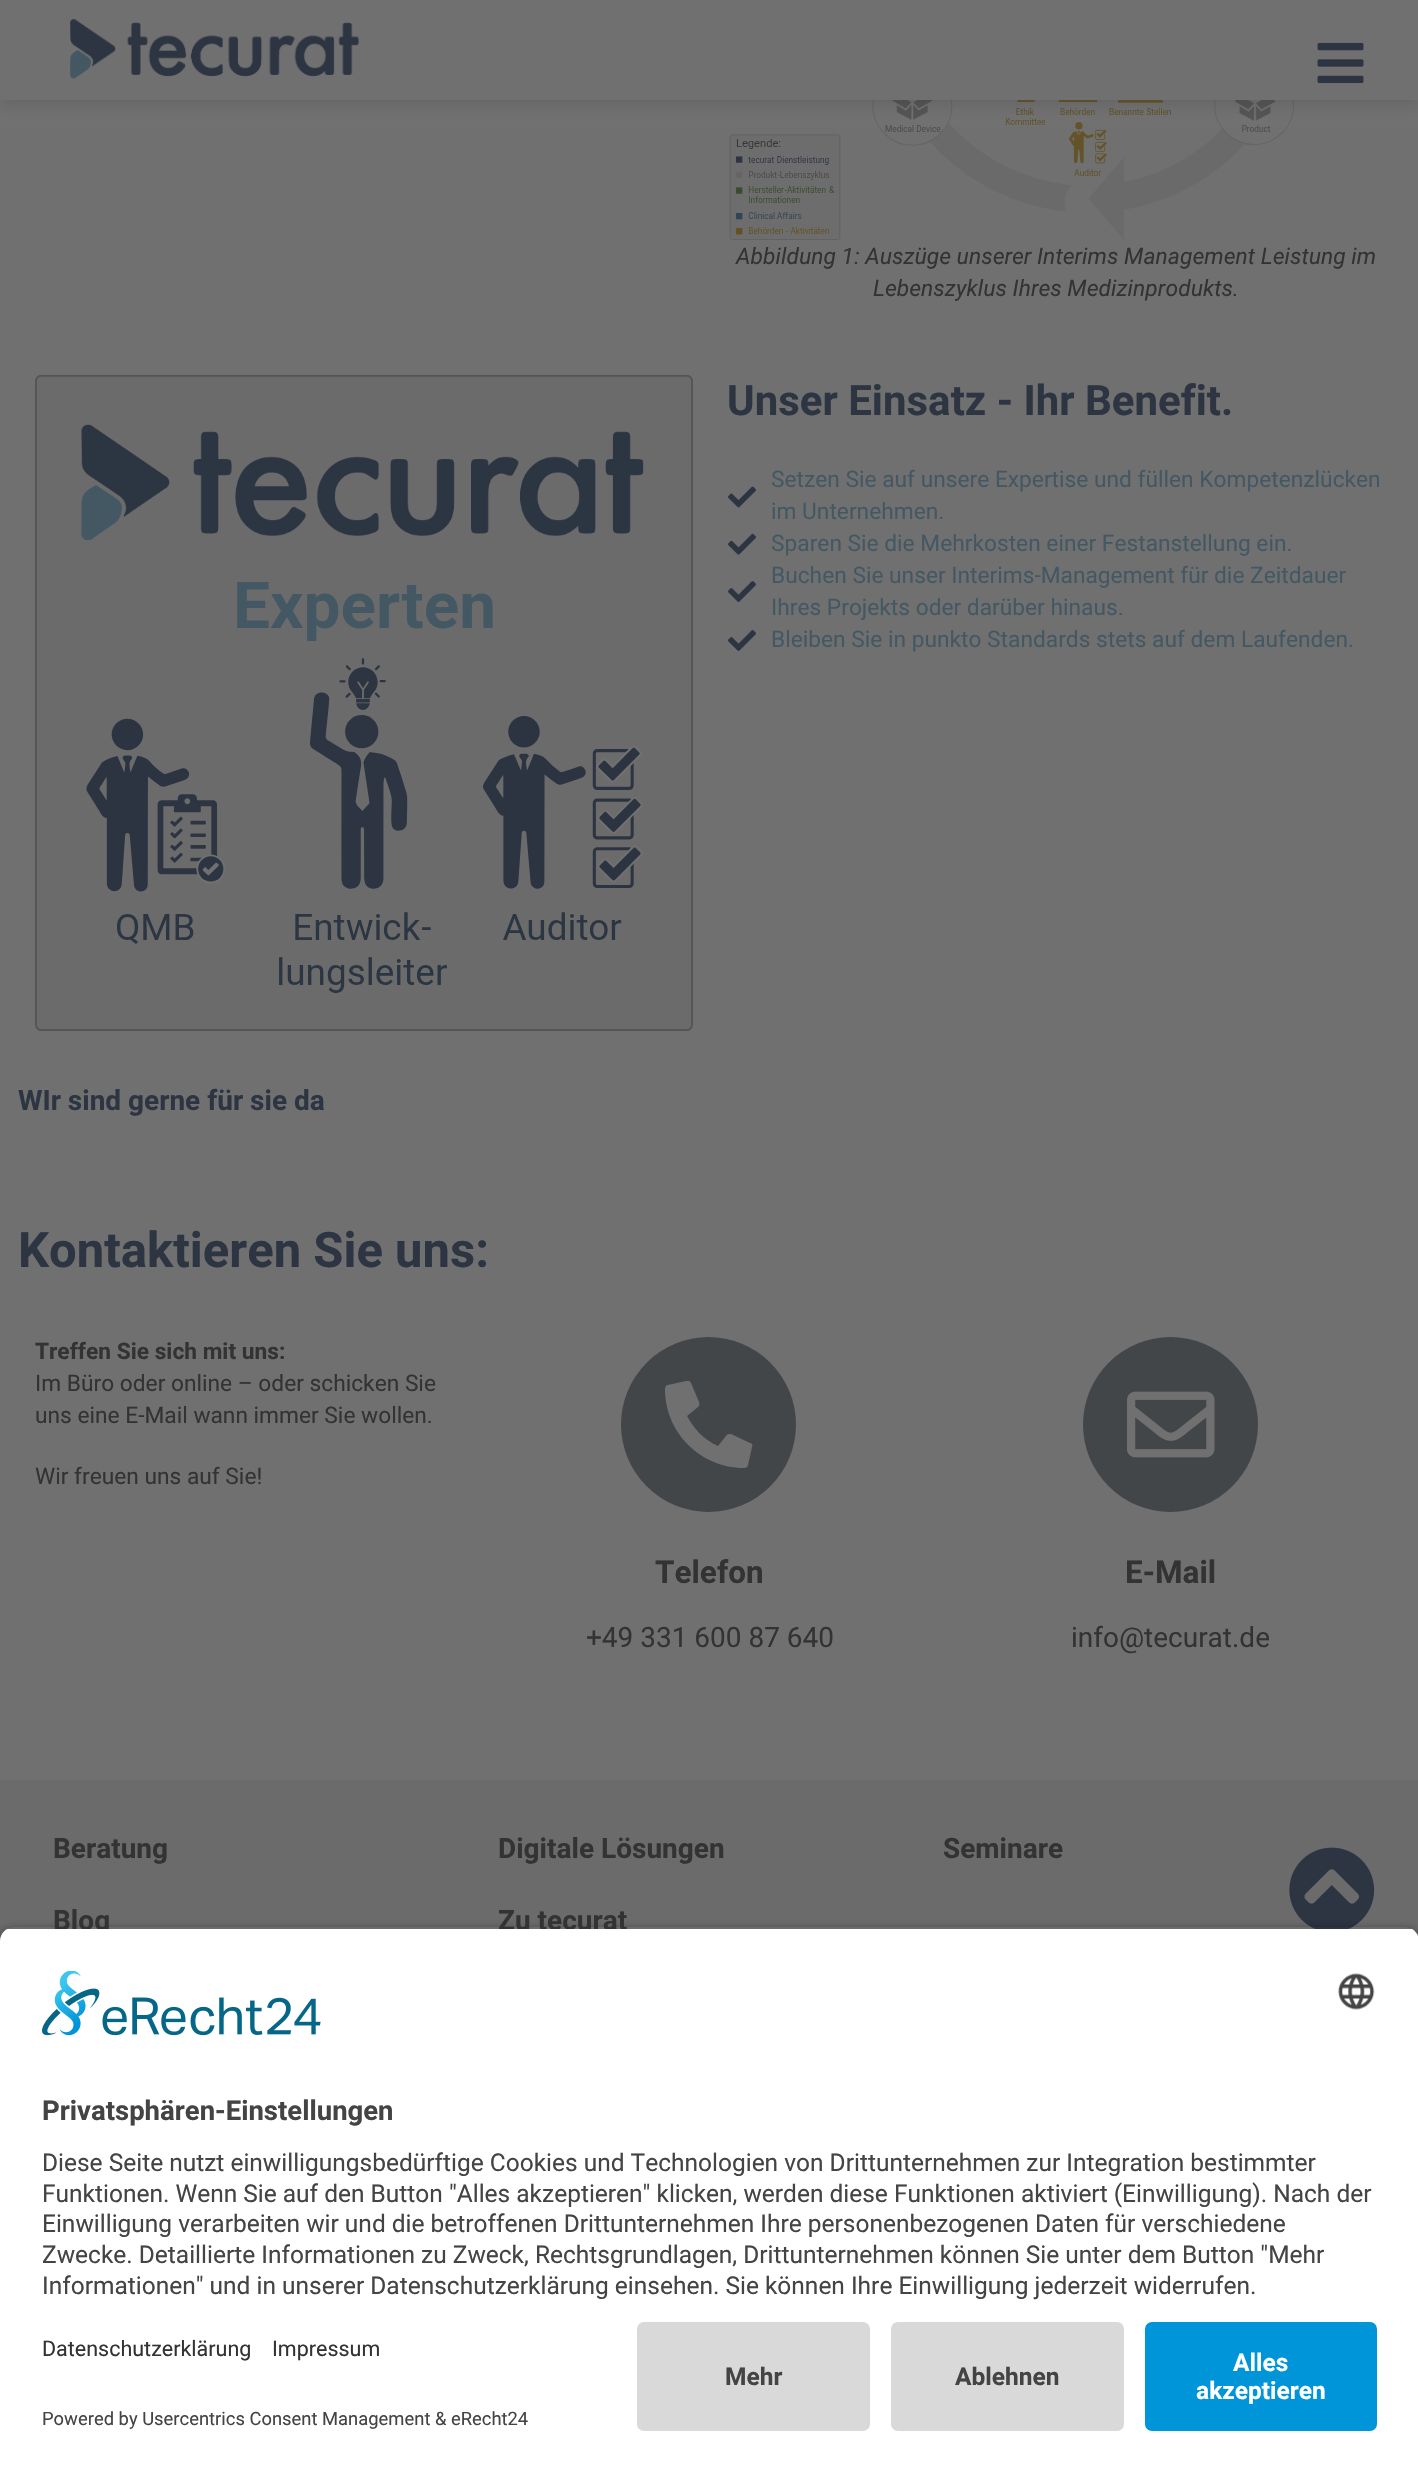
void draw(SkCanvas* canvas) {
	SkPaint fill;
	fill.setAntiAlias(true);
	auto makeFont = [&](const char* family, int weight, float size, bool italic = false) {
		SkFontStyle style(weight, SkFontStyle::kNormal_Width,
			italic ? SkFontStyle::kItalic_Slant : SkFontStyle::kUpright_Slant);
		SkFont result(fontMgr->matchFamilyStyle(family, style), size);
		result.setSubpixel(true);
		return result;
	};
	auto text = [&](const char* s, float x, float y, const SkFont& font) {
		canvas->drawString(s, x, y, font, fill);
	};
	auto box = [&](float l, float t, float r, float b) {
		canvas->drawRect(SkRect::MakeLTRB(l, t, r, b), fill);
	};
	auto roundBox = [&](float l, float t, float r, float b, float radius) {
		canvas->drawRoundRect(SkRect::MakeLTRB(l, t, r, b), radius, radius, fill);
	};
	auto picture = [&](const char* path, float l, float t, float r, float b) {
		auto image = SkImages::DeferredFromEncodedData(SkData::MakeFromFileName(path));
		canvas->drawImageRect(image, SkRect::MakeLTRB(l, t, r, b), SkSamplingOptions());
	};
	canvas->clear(0xFF707070);
	picture("image2.png", 729, 100, 1295, 240);
	fill.setColor(0x40242424);
	fill.setMaskFilter(SkMaskFilter::MakeBlur(kNormal_SkBlurStyle, 9));
	canvas->drawRect(SkRect::MakeLTRB(0, 0, 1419, 100), fill);
	fill.setMaskFilter(nullptr);
	fill.setColor(0xFF707070);
	box(0, 0, 1418, 100);
	picture("image0.png", 70, 19, 359, 79);
	picture("image1.png", 1317, 42, 1364, 84);
	picture("image3.png", 35, 375, 693, 1031);
	picture("image4.png", 728, 486, 756, 508);
	picture("image5.png", 728, 533, 756, 555);
	picture("image6.png", 728, 581, 756, 602);
	picture("image6.png", 728, 630, 756, 651);
	fill.setColor(0xFF434649);
	canvas->drawCircle(708.5f, 1424.5f, 87.5f, fill);
	canvas->save();
	canvas->clipRect(SkRect::MakeLTRB(665, 1381, 753, 1468));
	fill.setColor(0xFF707070);
	canvas->drawPath(SkPathBuilder().moveTo(750, 1443).lineTo(731, 1434).cubicTo(729, 1434, 727, 1434, 726, 1436).lineTo(718, 1446).cubicTo(704, 1440, 694, 1429, 687, 1416).lineTo(698, 1407).cubicTo(699, 1406, 700, 1404, 699, 1402).lineTo(691, 1383).cubicTo(690, 1381, 688, 1380, 686, 1381).lineTo(668, 1385).cubicTo(666, 1385, 665, 1387, 665, 1389).cubicTo(665, 1433, 701, 1468, 744, 1468).cubicTo(746, 1468, 748, 1467, 748, 1465).lineTo(752, 1447).cubicTo(753, 1445, 752, 1443, 750, 1443).close().detach(), fill);
	canvas->restore();
	fill.setColor(0xFF434649);
	canvas->drawCircle(1170.5f, 1424.5f, 87.5f, fill);
	picture("image7.png", 1127, 1391, 1215, 1458);
	fill.setColor(0xFF6B6B6B);
	box(0, 1780, 1418, 1941);
	picture("image8.png", 1289, 1847, 1375, 1929);
	canvas->save();
	canvas->clipPath(SkPathBuilder(SkPathFillType::kEvenOdd).moveTo(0, 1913).lineTo(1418, 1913).lineTo(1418, 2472).lineTo(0, 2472).close().moveTo(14, 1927).lineTo(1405, 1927).cubicTo(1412.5f, 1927, 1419, 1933.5f, 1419, 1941).lineTo(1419, 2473).lineTo(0, 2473).lineTo(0, 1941).cubicTo(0, 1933.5f, 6.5f, 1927, 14, 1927).close().detach(), true);
	fill.setColor(0xCC000000);
	fill.setMaskFilter(SkMaskFilter::MakeBlur(kNormal_SkBlurStyle, 6));
	canvas->drawRoundRect(SkRect::MakeLTRB(0, 1932, 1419, 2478), 14, 14, fill);
	fill.setMaskFilter(nullptr);
	canvas->restore();
	fill.setColor(0xFFFFFFFF);
	box(0, 2308, 1418, 2472);
	fill.setColor(0xFFD9D9D9);
	roundBox(637, 2322, 870, 2431, 7);
	roundBox(891, 2322, 1124, 2431, 7);
	fill.setColor(0xFF0094D8);
	roundBox(1145, 2322, 1377, 2431, 7);
	auto font1 = makeFont("Roboto", 400, 22.75f, true);
	fill.setColor(0xFF333333);
	text("Abbildung 1: Auszüge unserer Interims Management Leistung im", 736, 264, font1);
	text("Lebenszyklus Ihres Medizinprodukts.", 873, 296, font1);
	auto font2 = makeFont("Roboto", 700, 42);
	fill.setColor(0xFF2D3542);
	text("Unser Einsatz - Ihr Benefit.", 727, 415, font2);
	auto font3 = makeFont("Roboto", 400, 22.75f);
	fill.setColor(0xFF445864);
	text("Setzen Sie auf unsere Expertise und füllen Kompetenzlücken", 771, 487, font3);
	text("im Unternehmen.", 771, 519, font3);
	text("Sparen Sie die Mehrkosten einer Festanstellung ein.", 771, 551, font3);
	text("Buchen Sie unser Interims-Management für die Zeitdauer", 771, 583, font3);
	text("Ihres Projekts oder darüber hinaus.", 771, 615, font3);
	text("Bleiben Sie in punkto Standards stets auf dem Laufenden.", 771, 647, font3);
	auto font4 = makeFont("Roboto", 700, 28);
	fill.setColor(0xFF2D3542);
	text("WIr sind gerne für sie da", 18, 1110, font4);
	auto font5 = makeFont("Roboto", 700, 49);
	text("Kontaktieren Sie uns:", 18, 1267, font5);
	auto font6 = makeFont("Roboto", 700, 22.75f);
	fill.setColor(0xFF333333);
	text("Treffen Sie sich mit uns:", 35, 1359, font6);
	text("Im Büro oder online – oder schicken Sie", 35, 1391, font3);
	text("uns eine E-Mail wann immer Sie wollen.", 35, 1423, font3);
	text("Wir freuen uns auf Sie!", 35, 1484, font3);
	auto font7 = makeFont("Roboto", 700, 31.5f);
	text("Telefon", 655, 1583, font7);
	auto font8 = makeFont("Roboto", 400, 28);
	text("+49 331 600 87 640", 586, 1647, font8);
	text("E-Mail", 1125, 1583, font7);
	text("info@tecurat.de", 1071, 1647, font8);
	text("Beratung", 53, 1858, font4);
	text("Digitale Lösungen", 498, 1858, font4);
	text("Seminare", 943, 1858, font4);
	text("Blog", 53, 1930, font4);
	text("Zu tecurat", 498, 1930, font4);
	canvas->save();
	canvas->clipPath(SkPathBuilder().moveTo(14, 1927).lineTo(1405, 1927).cubicTo(1412.5f, 1927, 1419, 1933.5f, 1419, 1941).lineTo(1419, 2308).lineTo(0, 2308).lineTo(0, 1941).cubicTo(0, 1933.5f, 6.5f, 1927, 14, 1927).close().detach(), true);
	fill.setColor(0xFFFFFFFF);
	box(0, 1929, 1418, 2308);
	canvas->restore();
	picture("image9.png", 42, 1971, 321, 2036);
	picture("image10.png", 1338, 1973, 1375, 2010);
	auto font9 = makeFont("Roboto", 700, 27.5f);
	fill.setColor(0xFF444444);
	text("Privatsphären-Einstellungen", 42, 2120, font9);
	auto font10 = makeFont("Roboto", 400, 24.5f);
	text("Diese Seite nutzt einwilligungsbedürftige Cookies und Technologien von Drittunternehmen zur Integration bestimmter", 42, 2171, font10);
	text("Funktionen. Wenn Sie auf den Button \"Alles akzeptieren\" klicken, werden diese Funktionen aktiviert (Einwilligung). Nach der", 42, 2202, font10);
	text("Einwilligung verarbeiten wir und die betroffenen Drittunternehmen Ihre personenbezogenen Daten für verschiedene", 42, 2232, font10);
	text("Zwecke. Detaillierte Informationen zu Zweck, Rechtsgrundlagen, Drittunternehmen können Sie unter dem Button \"Mehr", 42, 2263, font10);
	text("Informationen\" und in unserer Datenschutzerklärung einsehen. Sie können Ihre Einwilligung jederzeit widerrufen.", 42, 2294, font10);
	auto font11 = makeFont("Roboto", 400, 21.5f);
	fill.setColor(0xFF333333);
	text("Datenschutzerklärung", 42, 2356, font11);
	text("Impressum", 272, 2356, font11);
	auto font12 = makeFont("Roboto", 400, 18.4f);
	fill.setColor(0xFF444444);
	text("Powered by Usercentrics Consent Management & eRecht24", 42, 2425, font12);
	auto font13 = makeFont("Roboto", 700, 24.5f);
	text("Mehr", 725, 2385, font13);
	text("Ablehnen", 955, 2385, font13);
	fill.setColor(0xFFFFFFFF);
	text("Alles", 1233, 2371, font13);
	text("akzeptieren", 1196, 2399, font13);
}
